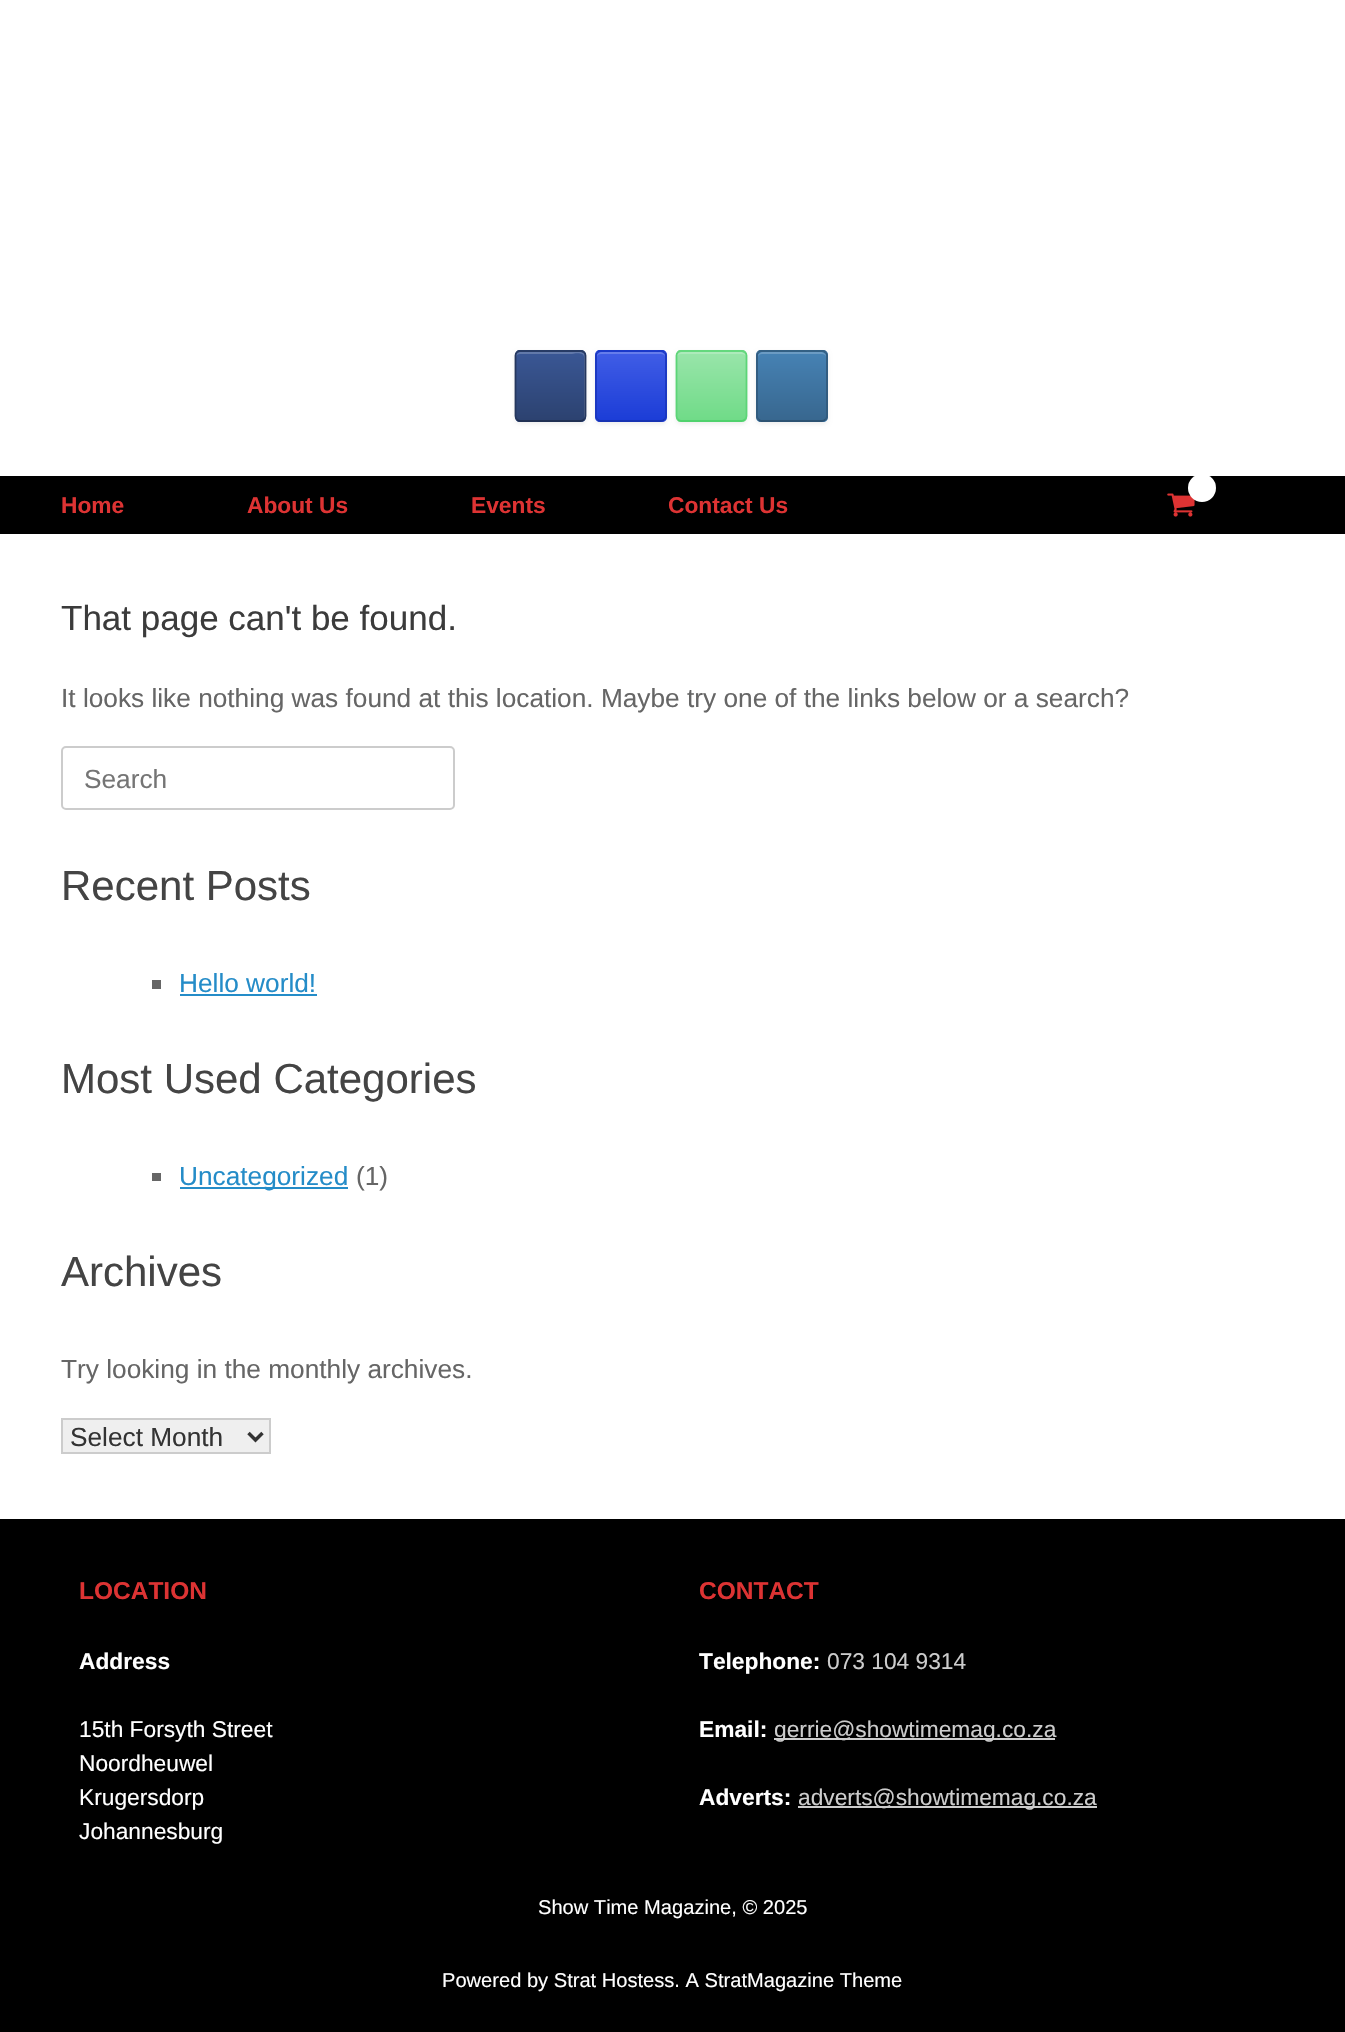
void draw(SkCanvas* canvas) {
	SkPaint fill;
	fill.setAntiAlias(true);
	auto makeFont = [&](const char* family, int weight, float size, bool italic = false) {
		SkFontStyle style(weight, SkFontStyle::kNormal_Width,
			italic ? SkFontStyle::kItalic_Slant : SkFontStyle::kUpright_Slant);
		SkFont result(fontMgr->matchFamilyStyle(family, style), size);
		result.setSubpixel(true);
		return result;
	};
	auto text = [&](const char* s, float x, float y, const SkFont& font) {
		canvas->drawString(s, x, y, font, fill);
	};
	auto box = [&](float l, float t, float r, float b) {
		canvas->drawRect(SkRect::MakeLTRB(l, t, r, b), fill);
	};
	auto picture = [&](const char* path, float l, float t, float r, float b) {
		auto image = SkImages::DeferredFromEncodedData(SkData::MakeFromFileName(path));
		canvas->drawImageRect(image, SkRect::MakeLTRB(l, t, r, b), SkSamplingOptions());
	};
	canvas->clear(0xFF000000);
	fill.setColor(0xFFFFFFFF);
	box(0, 0, 1345, 476);
	fill.setColor(0x12000000);
	fill.setMaskFilter(SkMaskFilter::MakeBlur(kNormal_SkBlurStyle, 2));
	canvas->drawRoundRect(SkRect::MakeLTRB(515, 352, 586, 424), 5, 5, fill);
	fill.setMaskFilter(nullptr);
	canvas->save();
	canvas->clipPath(SkPathBuilder().moveTo(520, 350).lineTo(581, 350).cubicTo(584, 350, 586, 352, 586, 355).lineTo(586, 417).cubicTo(586, 420, 584, 422, 581, 422).lineTo(520, 422).cubicTo(517, 422, 515, 420, 515, 417).lineTo(515, 355).cubicTo(515, 352, 517, 350, 520, 350).close().detach(), true);
	{
		const SkColor colors[] = {0xFF2C4270, 0xFF3A5795};
		const float stops[] = {0, 1};
		const SkPoint ends[] = {{516, 352}, {516, 284}};
		fill.setShader(SkGradientShader::MakeLinear(ends, colors, stops, 2, SkTileMode::kClamp));
		fill.setAlpha(255);
	}
	box(515, 350, 586, 352);
	{
		const SkColor colors[] = {0xFF2C4270, 0xFF3A5795};
		const float stops[] = {0, 1};
		const SkPoint ends[] = {{516, 420}, {516, 352}};
		fill.setShader(SkGradientShader::MakeLinear(ends, colors, stops, 2, SkTileMode::kClamp));
		fill.setAlpha(255);
	}
	box(515, 352, 586, 420);
	{
		const SkColor colors[] = {0xFF2C4270, 0xFF3A5795};
		const float stops[] = {0, 1};
		const SkPoint ends[] = {{516, 488}, {516, 420}};
		fill.setShader(SkGradientShader::MakeLinear(ends, colors, stops, 2, SkTileMode::kClamp));
		fill.setAlpha(255);
	}
	box(515, 420, 586, 422);
	canvas->restore();
	fill.setShader(nullptr);
	fill.setColor(0x33FFFFFF);
	canvas->drawPath(SkPathBuilder().moveTo(520, 354).lineTo(571, 354).cubicTo(572, 354, 584, 351, 584, 357).lineTo(584, 419).cubicTo(585, 418, 585, 417, 585, 416).lineTo(585, 356).cubicTo(585, 354, 583, 352, 581, 352).lineTo(520, 352).cubicTo(518, 352, 516, 354, 516, 356).lineTo(516, 357).cubicTo(516, 355, 518, 354, 520, 354).close().detach(), fill);
	fill.setStyle(SkPaint::kStroke_Style);
	fill.setStrokeWidth(1.8f);
	fill.setColor(0xFF273B65);
	canvas->drawPath(SkPathBuilder().moveTo(517, 352.5f).cubicTo(517.5f, 351.5f, 519, 351, 520, 351).lineTo(580.5f, 351).cubicTo(582, 351, 583, 351.5f, 584, 352.5f).detach(), fill);
	fill.setColor(0xFF25375E);
	canvas->drawPath(SkPathBuilder().moveTo(584, 352.5f).cubicTo(585, 353, 585.5f, 354.5f, 585.5f, 355.5f).lineTo(585.5f, 416).cubicTo(585.5f, 417.5f, 585, 418.5f, 584, 419.5f).detach(), fill);
	fill.setColor(0xFF203053);
	canvas->drawPath(SkPathBuilder().moveTo(584, 419.5f).cubicTo(583, 420.5f, 582, 421, 580.5f, 421).lineTo(520, 421).cubicTo(519, 421, 517.5f, 420.5f, 517, 419.5f).detach(), fill);
	fill.setColor(0xFF25375E);
	canvas->drawPath(SkPathBuilder().moveTo(517, 419.5f).cubicTo(516, 418.5f, 515.5f, 417.5f, 515.5f, 416).lineTo(515.5f, 355.5f).cubicTo(515.5f, 354.5f, 516, 353, 517, 352.5f).detach(), fill);
	fill.setStyle(SkPaint::kFill_Style);
	fill.setColor(0x12000000);
	fill.setMaskFilter(SkMaskFilter::MakeBlur(kNormal_SkBlurStyle, 2));
	canvas->drawRoundRect(SkRect::MakeLTRB(595, 352, 667, 424), 5, 5, fill);
	fill.setMaskFilter(nullptr);
	canvas->save();
	canvas->clipPath(SkPathBuilder().moveTo(600, 350).lineTo(662, 350).cubicTo(665, 350, 667, 352, 667, 355).lineTo(667, 417).cubicTo(667, 420, 665, 422, 662, 422).lineTo(600, 422).cubicTo(597, 422, 595, 420, 595, 417).lineTo(595, 355).cubicTo(595, 352, 597, 350, 600, 350).close().detach(), true);
	{
		const SkColor colors[] = {0xFF1C3DD7, 0xFF405DE6};
		const float stops[] = {0, 1};
		const SkPoint ends[] = {{597, 352}, {597, 284}};
		fill.setShader(SkGradientShader::MakeLinear(ends, colors, stops, 2, SkTileMode::kClamp));
		fill.setAlpha(255);
	}
	box(595, 350, 667, 352);
	{
		const SkColor colors[] = {0xFF1C3DD7, 0xFF405DE6};
		const float stops[] = {0, 1};
		const SkPoint ends[] = {{597, 420}, {597, 352}};
		fill.setShader(SkGradientShader::MakeLinear(ends, colors, stops, 2, SkTileMode::kClamp));
		fill.setAlpha(255);
	}
	box(595, 352, 667, 420);
	{
		const SkColor colors[] = {0xFF1C3DD7, 0xFF405DE6};
		const float stops[] = {0, 1};
		const SkPoint ends[] = {{597, 488}, {597, 420}};
		fill.setShader(SkGradientShader::MakeLinear(ends, colors, stops, 2, SkTileMode::kClamp));
		fill.setAlpha(255);
	}
	box(595, 420, 667, 422);
	canvas->restore();
	fill.setShader(nullptr);
	fill.setColor(0xFF667DEB);
	canvas->drawPath(SkPathBuilder().moveTo(601, 354).lineTo(661, 354).cubicTo(663, 354, 665, 355, 665, 357).cubicTo(665, 350, 656, 352, 651, 352).lineTo(611, 352).cubicTo(606, 352, 597, 350, 597, 357).cubicTo(597, 355, 599, 354, 601, 354).close().detach(), fill);
	fill.setStyle(SkPaint::kStroke_Style);
	fill.setColor(0xFF1A39C9);
	canvas->drawPath(SkPathBuilder().moveTo(597.5f, 352.5f).cubicTo(598, 351.5f, 599.5f, 351, 600.5f, 351).lineTo(661, 351).cubicTo(662.5f, 351, 663.5f, 351.5f, 664.5f, 352.5f).detach(), fill);
	fill.setColor(0xFF1936C0);
	canvas->drawPath(SkPathBuilder().moveTo(664.5f, 352.5f).cubicTo(665.5f, 353, 666, 354.5f, 666, 355.5f).lineTo(666, 416).cubicTo(666, 417.5f, 665.5f, 418.5f, 664.5f, 419.5f).detach(), fill);
	fill.setColor(0xFF1733B3);
	canvas->drawPath(SkPathBuilder().moveTo(664.5f, 419.5f).cubicTo(663.5f, 420.5f, 662.5f, 421, 661, 421).lineTo(600.5f, 421).cubicTo(599.5f, 421, 598, 420.5f, 597.5f, 419.5f).detach(), fill);
	fill.setColor(0xFF1936C0);
	canvas->drawPath(SkPathBuilder().moveTo(597.5f, 419.5f).cubicTo(596.5f, 418.5f, 596, 417.5f, 596, 416).lineTo(596, 355.5f).cubicTo(596, 354.5f, 596.5f, 353, 597.5f, 352.5f).detach(), fill);
	fill.setStyle(SkPaint::kFill_Style);
	fill.setColor(0x12000000);
	fill.setMaskFilter(SkMaskFilter::MakeBlur(kNormal_SkBlurStyle, 2));
	canvas->drawRoundRect(SkRect::MakeLTRB(676, 352, 747, 424), 5, 5, fill);
	fill.setMaskFilter(nullptr);
	canvas->save();
	canvas->clipPath(SkPathBuilder().moveTo(681, 350).lineTo(742, 350).cubicTo(745, 350, 747, 352, 747, 355).lineTo(747, 417).cubicTo(747, 420, 745, 422, 742, 422).lineTo(681, 422).cubicTo(678, 422, 676, 420, 676, 417).lineTo(676, 355).cubicTo(676, 352, 678, 350, 681, 350).close().detach(), true);
	{
		const SkColor colors[] = {0xFF70DB88, 0xFF99E5AA};
		const float stops[] = {0, 1};
		const SkPoint ends[] = {{677, 352}, {677, 284}};
		fill.setShader(SkGradientShader::MakeLinear(ends, colors, stops, 2, SkTileMode::kClamp));
		fill.setAlpha(255);
	}
	box(676, 350, 747, 352);
	{
		const SkColor colors[] = {0xFF70DB88, 0xFF99E5AA};
		const float stops[] = {0, 1};
		const SkPoint ends[] = {{677, 420}, {677, 352}};
		fill.setShader(SkGradientShader::MakeLinear(ends, colors, stops, 2, SkTileMode::kClamp));
		fill.setAlpha(255);
	}
	box(676, 352, 747, 420);
	{
		const SkColor colors[] = {0xFF70DB88, 0xFF99E5AA};
		const float stops[] = {0, 1};
		const SkPoint ends[] = {{677, 488}, {677, 420}};
		fill.setShader(SkGradientShader::MakeLinear(ends, colors, stops, 2, SkTileMode::kClamp));
		fill.setAlpha(255);
	}
	box(676, 420, 747, 422);
	canvas->restore();
	fill.setShader(nullptr);
	fill.setColor(0xFFADEABB);
	canvas->drawPath(SkPathBuilder().moveTo(681, 354).lineTo(742, 354).cubicTo(744, 354, 746, 355, 746, 357).cubicTo(746, 350, 737, 352, 732, 352).lineTo(691, 352).cubicTo(686, 352, 677, 350, 677, 357).cubicTo(677, 355, 679, 354, 681, 354).close().detach(), fill);
	fill.setStyle(SkPaint::kStroke_Style);
	fill.setColor(0xFF64D87E);
	canvas->drawPath(SkPathBuilder().moveTo(678, 352.5f).cubicTo(678.5f, 351.5f, 680, 351, 681, 351).lineTo(741.5f, 351).cubicTo(743, 351, 744, 351.5f, 745, 352.5f).detach(), fill);
	fill.setColor(0xFF5CD577);
	canvas->drawPath(SkPathBuilder().moveTo(745, 352.5f).cubicTo(746, 353, 746.5f, 354.5f, 746.5f, 355.5f).lineTo(746.5f, 416).cubicTo(746.5f, 417.5f, 746, 418.5f, 745, 419.5f).detach(), fill);
	fill.setColor(0xFF50D26D);
	canvas->drawPath(SkPathBuilder().moveTo(745, 419.5f).cubicTo(744, 420.5f, 743, 421, 741.5f, 421).lineTo(681, 421).cubicTo(680, 421, 678.5f, 420.5f, 678, 419.5f).detach(), fill);
	fill.setColor(0xFF5CD577);
	canvas->drawPath(SkPathBuilder().moveTo(678, 419.5f).cubicTo(677, 418.5f, 676.5f, 417.5f, 676.5f, 416).lineTo(676.5f, 355.5f).cubicTo(676.5f, 354.5f, 677, 353, 678, 352.5f).detach(), fill);
	fill.setStyle(SkPaint::kFill_Style);
	fill.setColor(0x12000000);
	fill.setMaskFilter(SkMaskFilter::MakeBlur(kNormal_SkBlurStyle, 2));
	canvas->drawRoundRect(SkRect::MakeLTRB(756, 352, 828, 424), 5, 5, fill);
	fill.setMaskFilter(nullptr);
	canvas->save();
	canvas->clipPath(SkPathBuilder().moveTo(761, 350).lineTo(823, 350).cubicTo(826, 350, 828, 352, 828, 355).lineTo(828, 417).cubicTo(828, 420, 826, 422, 823, 422).lineTo(761, 422).cubicTo(758, 422, 756, 420, 756, 417).lineTo(756, 355).cubicTo(756, 352, 758, 350, 761, 350).close().detach(), true);
	{
		const SkColor colors[] = {0xFF38678F, 0xFF4682B4};
		const float stops[] = {0, 1};
		const SkPoint ends[] = {{758, 352}, {758, 284}};
		fill.setShader(SkGradientShader::MakeLinear(ends, colors, stops, 2, SkTileMode::kClamp));
		fill.setAlpha(255);
	}
	box(756, 350, 828, 352);
	{
		const SkColor colors[] = {0xFF38678F, 0xFF4682B4};
		const float stops[] = {0, 1};
		const SkPoint ends[] = {{758, 420}, {758, 352}};
		fill.setShader(SkGradientShader::MakeLinear(ends, colors, stops, 2, SkTileMode::kClamp));
		fill.setAlpha(255);
	}
	box(756, 352, 828, 420);
	{
		const SkColor colors[] = {0xFF38678F, 0xFF4682B4};
		const float stops[] = {0, 1};
		const SkPoint ends[] = {{758, 488}, {758, 420}};
		fill.setShader(SkGradientShader::MakeLinear(ends, colors, stops, 2, SkTileMode::kClamp));
		fill.setAlpha(255);
	}
	box(756, 420, 828, 422);
	canvas->restore();
	fill.setShader(nullptr);
	fill.setColor(0xFF6B9BC3);
	canvas->drawPath(SkPathBuilder().moveTo(762, 354).lineTo(822, 354).cubicTo(824, 354, 826, 355, 826, 357).cubicTo(826, 350, 817, 352, 812, 352).lineTo(772, 352).cubicTo(767, 352, 758, 350, 758, 357).cubicTo(758, 355, 760, 354, 762, 354).close().detach(), fill);
	fill.setStyle(SkPaint::kStroke_Style);
	fill.setColor(0xFF336084);
	canvas->drawPath(SkPathBuilder().moveTo(758.5f, 352.5f).cubicTo(759, 351.5f, 760.5f, 351, 761.5f, 351).lineTo(822, 351).cubicTo(823.5f, 351, 824.5f, 351.5f, 825.5f, 352.5f).detach(), fill);
	fill.setColor(0xFF315A7D);
	canvas->drawPath(SkPathBuilder().moveTo(825.5f, 352.5f).cubicTo(826.5f, 353, 827, 354.5f, 827, 355.5f).lineTo(827, 416).cubicTo(827, 417.5f, 826.5f, 418.5f, 825.5f, 419.5f).detach(), fill);
	fill.setColor(0xFF2C5272);
	canvas->drawPath(SkPathBuilder().moveTo(825.5f, 419.5f).cubicTo(824.5f, 420.5f, 823.5f, 421, 822, 421).lineTo(761.5f, 421).cubicTo(760.5f, 421, 759, 420.5f, 758.5f, 419.5f).detach(), fill);
	fill.setColor(0xFF315A7D);
	canvas->drawPath(SkPathBuilder().moveTo(758.5f, 419.5f).cubicTo(757.5f, 418.5f, 757, 417.5f, 757, 416).lineTo(757, 355.5f).cubicTo(757, 354.5f, 757.5f, 353, 758.5f, 352.5f).detach(), fill);
	picture("image0.png", 1167, 493, 1195, 517);
	fill.setStyle(SkPaint::kFill_Style);
	fill.setColor(0xFFFFFFFF);
	canvas->drawCircle(1202, 488, 14, fill);
	box(0, 534, 1345, 1519);
	fill.setStyle(SkPaint::kStroke_Style);
	fill.setStrokeWidth(2);
	fill.setColor(0xFFCCCCCC);
	canvas->drawRoundRect(SkRect::MakeLTRB(62, 747, 454, 809), 4, 4, fill);
	fill.setStyle(SkPaint::kFill_Style);
	fill.setColor(0xFF666666);
	box(152, 980, 161, 989);
	fill.setColor(0xFF248CC8);
	box(180, 994, 317, 996);
	fill.setColor(0xFF666666);
	box(152, 1173, 161, 1181);
	fill.setColor(0xFF248CC8);
	box(180, 1187, 348, 1189);
	fill.setColor(0xFFEFEFEF);
	canvas->drawRect(SkRect::MakeLTRB(62, 1419, 270, 1453), fill);
	fill.setStyle(SkPaint::kStroke_Style);
	fill.setColor(0xFFCCCCCC);
	canvas->drawRect(SkRect::MakeLTRB(62, 1419, 270, 1453), fill);
	fill.setStrokeWidth(3.5f);
	fill.setColor(0xFF333333);
	canvas->drawPath(SkPathBuilder().moveTo(248.5f, 1433).lineTo(255.5f, 1440).lineTo(262.5f, 1433).detach(), fill);
	fill.setStyle(SkPaint::kFill_Style);
	fill.setColor(0xFFCCCCCC);
	box(774, 1738, 1055, 1740);
	box(798, 1806, 1097, 1808);
	auto font1 = makeFont("Liberation Sans", 700, 22.75f);
	fill.setColor(0xFFDD3333);
	text("Home", 61, 513, font1);
	text("About Us", 247, 513, font1);
	text("Events", 471, 513, font1);
	text("Contact Us", 668, 513, font1);
	auto font2 = makeFont("Liberation Sans", 400, 35);
	fill.setColor(0xFF3B3B3B);
	text("That page can't be found.", 61, 630, font2);
	auto font3 = makeFont("Liberation Sans", 400, 26.25f);
	fill.setColor(0xFF666666);
	text("It looks like nothing was found at this location. Maybe try one of the links below or a search?", 61, 707, font3);
	fill.setColor(0xFF757575);
	text("Search", 84, 788, font3);
	auto font4 = makeFont("Liberation Sans", 400, 42);
	fill.setColor(0xFF444444);
	text("Recent Posts", 61, 900, font4);
	fill.setColor(0xFF248CC8);
	text("Hello world!", 179, 992, font3);
	fill.setColor(0xFF444444);
	text("Most Used Categories", 61, 1093, font4);
	fill.setColor(0xFF248CC8);
	text("Uncategorized", 179, 1185, font3);
	fill.setColor(0xFF666666);
	text("(1)", 356, 1185, font3);
	fill.setColor(0xFF444444);
	text("Archives", 61, 1286, font4);
	fill.setColor(0xFF666666);
	text("Try looking in the monthly archives.", 61, 1378, font3);
	fill.setColor(0xFF333333);
	text("Select Month", 70, 1446, font3);
	auto font5 = makeFont("Liberation Sans", 700, 24.5f);
	fill.setColor(0xFFDD3333);
	text("LOCATION", 79, 1599, font5);
	fill.setColor(0xFFFFFFFF);
	text("Address", 79, 1669, font1);
	auto font6 = makeFont("Liberation Sans", 400, 22.75f);
	text("15th Forsyth Street", 79, 1737, font6);
	text("Noordheuwel", 79, 1771, font6);
	text("Krugersdorp", 79, 1805, font6);
	text("Johannesburg", 79, 1839, font6);
	fill.setColor(0xFFDD3333);
	text("CONTACT", 699, 1599, font5);
	fill.setColor(0xFFFFFFFF);
	text("Telephone:", 699, 1669, font1);
	fill.setColor(0xFFCCCCCC);
	text("073 104 9314", 827, 1669, font6);
	fill.setColor(0xFFFFFFFF);
	text("Email:", 699, 1737, font1);
	fill.setColor(0xFFCCCCCC);
	text("gerrie@showtimemag.co.za", 774, 1737, font6);
	fill.setColor(0xFFFFFFFF);
	text("Adverts:", 699, 1805, font1);
	fill.setColor(0xFFCCCCCC);
	text("adverts@showtimemag.co.za", 798, 1805, font6);
	auto font7 = makeFont("Liberation Sans", 400, 20.1f);
	fill.setColor(0xFFFFFFFF);
	text("Show Time Magazine, © 2025", 538, 1914, font7);
	text("Powered by Strat Hostess. A StratMagazine Theme", 442, 1987, font7);
}
